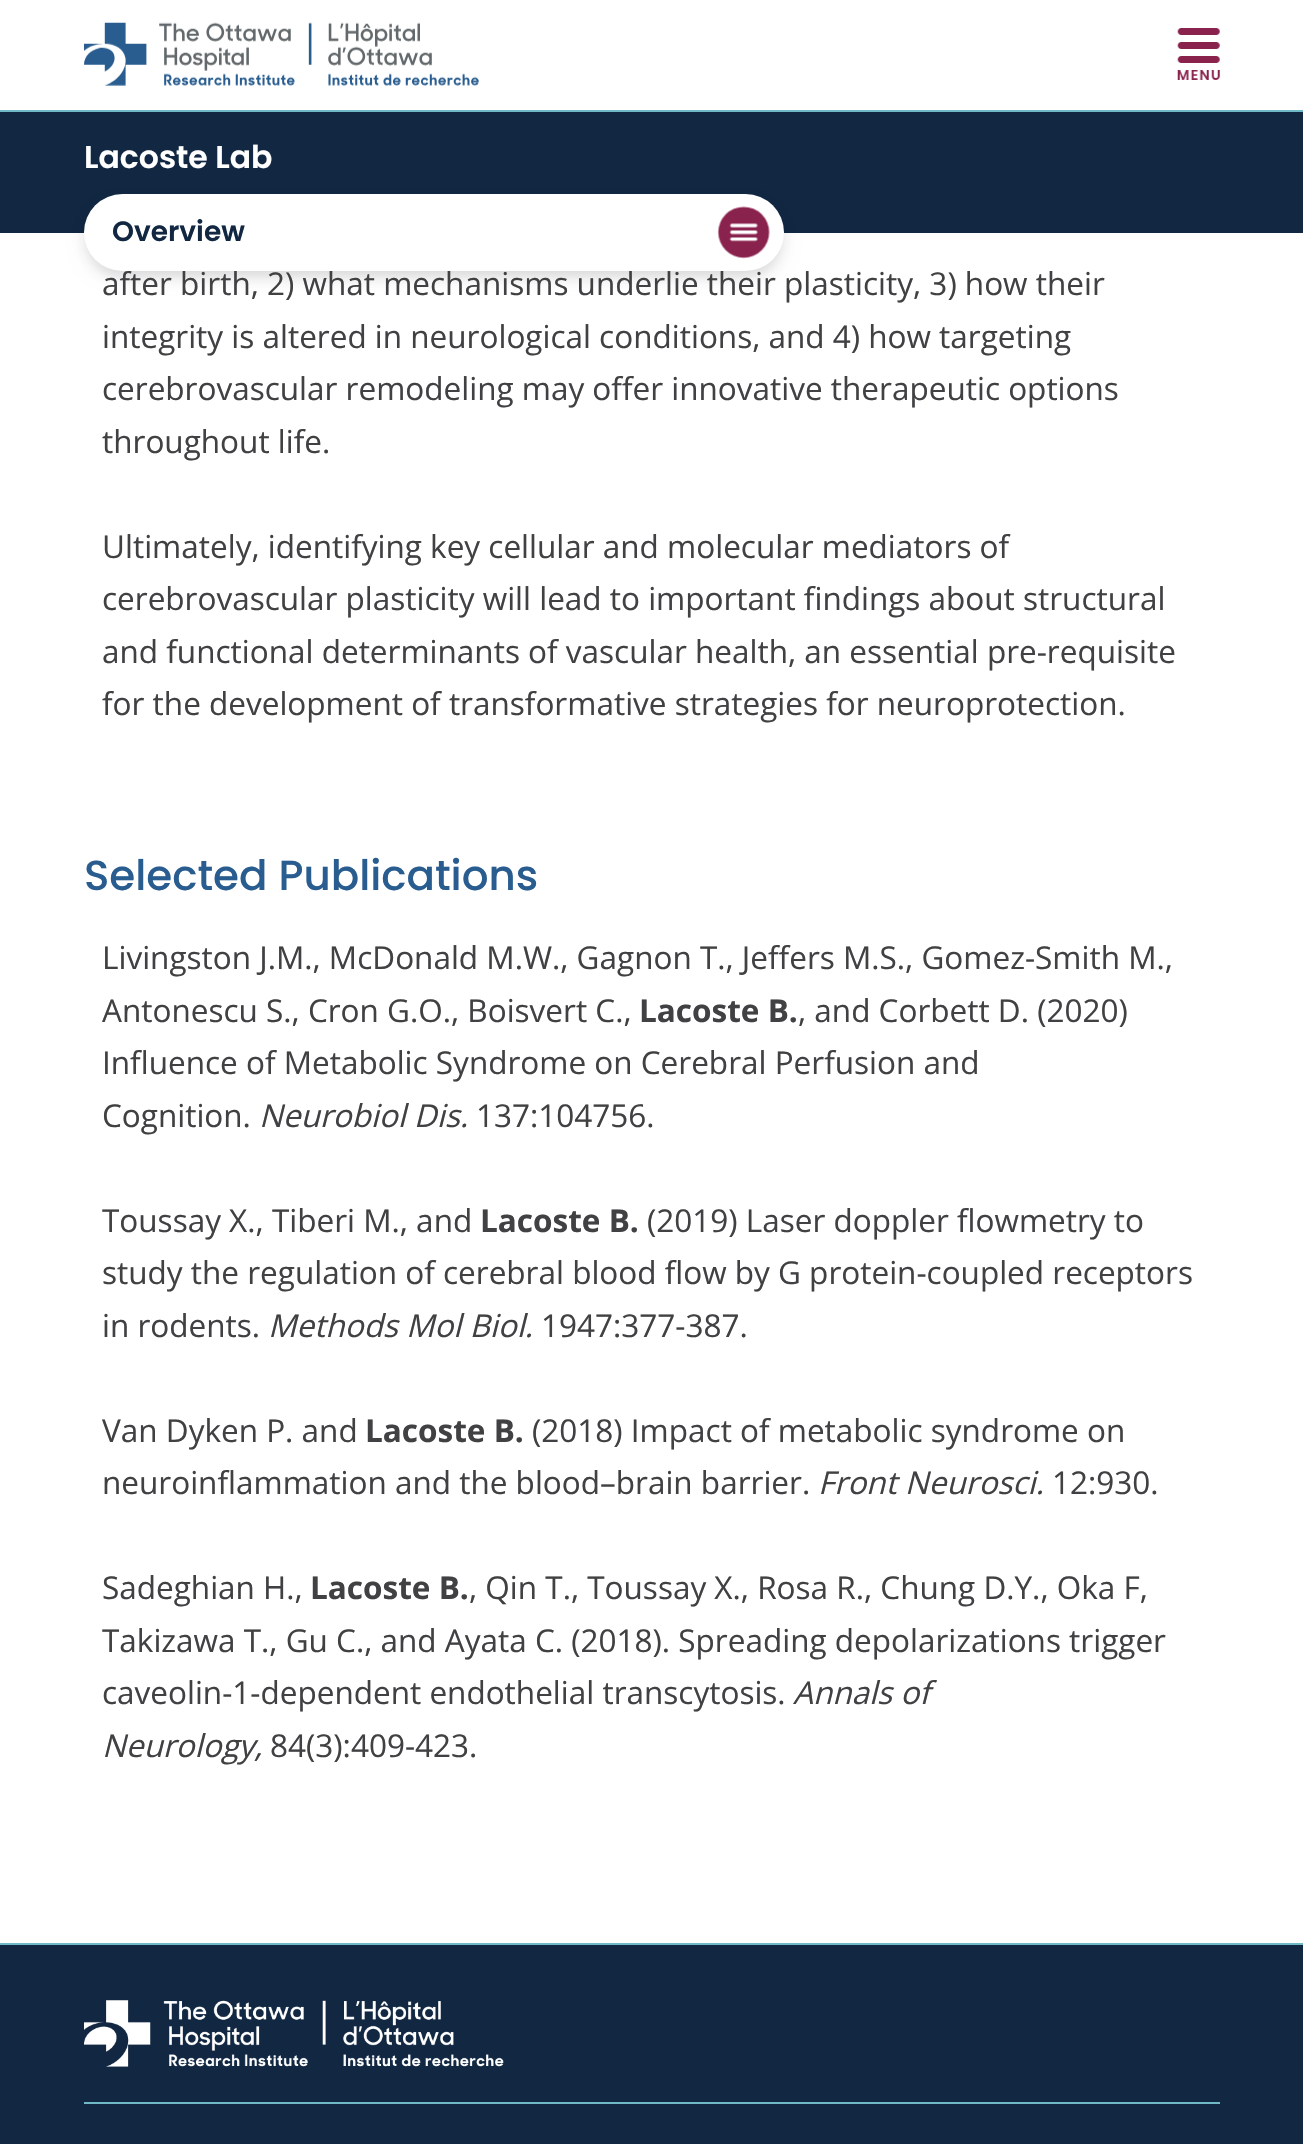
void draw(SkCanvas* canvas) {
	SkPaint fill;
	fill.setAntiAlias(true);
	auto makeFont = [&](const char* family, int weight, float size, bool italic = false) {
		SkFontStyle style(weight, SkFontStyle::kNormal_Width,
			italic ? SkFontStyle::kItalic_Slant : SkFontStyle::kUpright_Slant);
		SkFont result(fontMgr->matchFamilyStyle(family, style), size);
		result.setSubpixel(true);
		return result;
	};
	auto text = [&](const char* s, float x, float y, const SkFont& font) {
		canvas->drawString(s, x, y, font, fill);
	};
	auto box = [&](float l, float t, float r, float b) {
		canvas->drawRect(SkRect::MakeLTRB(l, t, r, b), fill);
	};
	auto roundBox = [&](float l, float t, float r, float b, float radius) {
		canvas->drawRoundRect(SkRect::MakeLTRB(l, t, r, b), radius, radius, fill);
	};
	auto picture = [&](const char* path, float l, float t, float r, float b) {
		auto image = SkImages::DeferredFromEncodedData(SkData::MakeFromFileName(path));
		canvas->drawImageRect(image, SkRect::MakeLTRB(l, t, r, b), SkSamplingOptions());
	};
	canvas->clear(0xFFFFFFFF);
	fill.setColor(0xFF70B9C6);
	box(0, 110, 1303, 112);
	picture("image0.png", 84, 22, 479, 86);
	picture("image1.png", 1177, 28, 1220, 80);
	fill.setColor(0xFF112742);
	box(0, 112, 1303, 233);
	fill.setColor(0x0D000000);
	fill.setMaskFilter(SkMaskFilter::MakeBlur(kNormal_SkBlurStyle, 5));
	canvas->drawRoundRect(SkRect::MakeLTRB(89, 210, 779, 277), 33.5f, 33.5f, fill);
	fill.setMaskFilter(nullptr);
	fill.setColor(0x1A000000);
	fill.setMaskFilter(SkMaskFilter::MakeBlur(kNormal_SkBlurStyle, 8));
	canvas->drawRoundRect(SkRect::MakeLTRB(84, 200, 784, 277), 38.5f, 38.5f, fill);
	fill.setMaskFilter(nullptr);
	fill.setColor(0xFF112742);
	box(0, 1945, 1303, 2144);
	fill.setColor(0xFF70B9C6);
	box(0, 1943, 1303, 1945);
	picture("image3.png", 84, 2000, 504, 2067);
	box(84, 2102, 1220, 2104);
	auto font1 = makeFont("Poppins", 600, 31.5f);
	fill.setColor(0xFFFFFFFF);
	text("Lacoste Lab", 84, 168, font1);
	auto font2 = makeFont("Open Sans", 400, 31.5f);
	fill.setColor(0xFF414042);
	text("after birth, 2) what mechanisms underlie their plasticity, 3) how their", 102, 295, font2);
	fill.setColor(0xFFFFFFFF);
	roundBox(84, 194, 784, 271, 38.5f);
	picture("image2.png", 717, 206, 770, 259);
	auto font3 = makeFont("Poppins", 600, 28);
	fill.setColor(0xFF112742);
	text("Overview", 112, 241, font3);
	fill.setColor(0xFF414042);
	text("integrity is altered in neurological conditions, and 4) how targeting", 102, 348, font2);
	text("cerebrovascular remodeling may offer innovative therapeutic options", 102, 400, font2);
	text("throughout life.", 102, 453, font2);
	text("Ultimately, identifying key cellular and molecular mediators of", 102, 558, font2);
	text("cerebrovascular plasticity will lead to important findings about structural", 102, 610, font2);
	text("and functional determinants of vascular health, an essential pre-requisite", 102, 663, font2);
	text("for the development of transformative strategies for neuroprotection.", 102, 715, font2);
	auto font4 = makeFont("Poppins", 500, 42);
	fill.setColor(0xFF295D90);
	text("Selected Publications", 84, 890, font4);
	fill.setColor(0xFF414042);
	text("Livingston J.M., McDonald M.W., Gagnon T., Jeffers M.S., Gomez-Smith M.,", 102, 969, font2);
	text("Antonescu S., Cron G.O., Boisvert C.,", 102, 1022, font2);
	auto font5 = makeFont("Open Sans", 700, 31.5f);
	text("Lacoste B.", 639, 1022, font5);
	text(", and Corbett D. (2020)", 798, 1022, font2);
	text("Influence of Metabolic Syndrome on Cerebral Perfusion and", 102, 1074, font2);
	text("Cognition.", 102, 1127, font2);
	auto font6 = makeFont("Open Sans", 400, 31.5f, true);
	text("Neurobiol Dis.", 259, 1127, font6);
	text("137:104756.", 476, 1127, font2);
	text("Toussay X., Tiberi M., and", 102, 1232, font2);
	text("Lacoste B.", 480, 1232, font5);
	text("(2019) Laser doppler flowmetry to", 647, 1232, font2);
	text("study the regulation of cerebral blood flow by G protein-coupled receptors", 102, 1284, font2);
	text("in rodents.", 102, 1337, font2);
	text("Methods Mol Biol.", 268, 1337, font6);
	text("1947:377-387.", 541, 1337, font2);
	text("Van Dyken P. and", 102, 1442, font2);
	text("Lacoste B.", 365, 1442, font5);
	text("(2018) Impact of metabolic syndrome on", 532, 1442, font2);
	text("neuroinflammation and the blood–brain barrier.", 102, 1494, font2);
	text("Front Neurosci.", 818, 1494, font6);
	text("12:930.", 1052, 1494, font2);
	text("Sadeghian H.,", 102, 1599, font2);
	text("Lacoste B.", 310, 1599, font5);
	text(", Qin T., Toussay X., Rosa R., Chung D.Y., Oka F,", 469, 1599, font2);
	text("Takizawa T., Gu C., and Ayata C. (2018). Spreading depolarizations trigger", 102, 1652, font2);
	text("caveolin-1-dependent endothelial transcytosis.", 102, 1704, font2);
	text("Annals of", 793, 1704, font6);
	text("Neurology,", 102, 1757, font6);
	text("84(3):409-423.", 270, 1757, font2);
}
